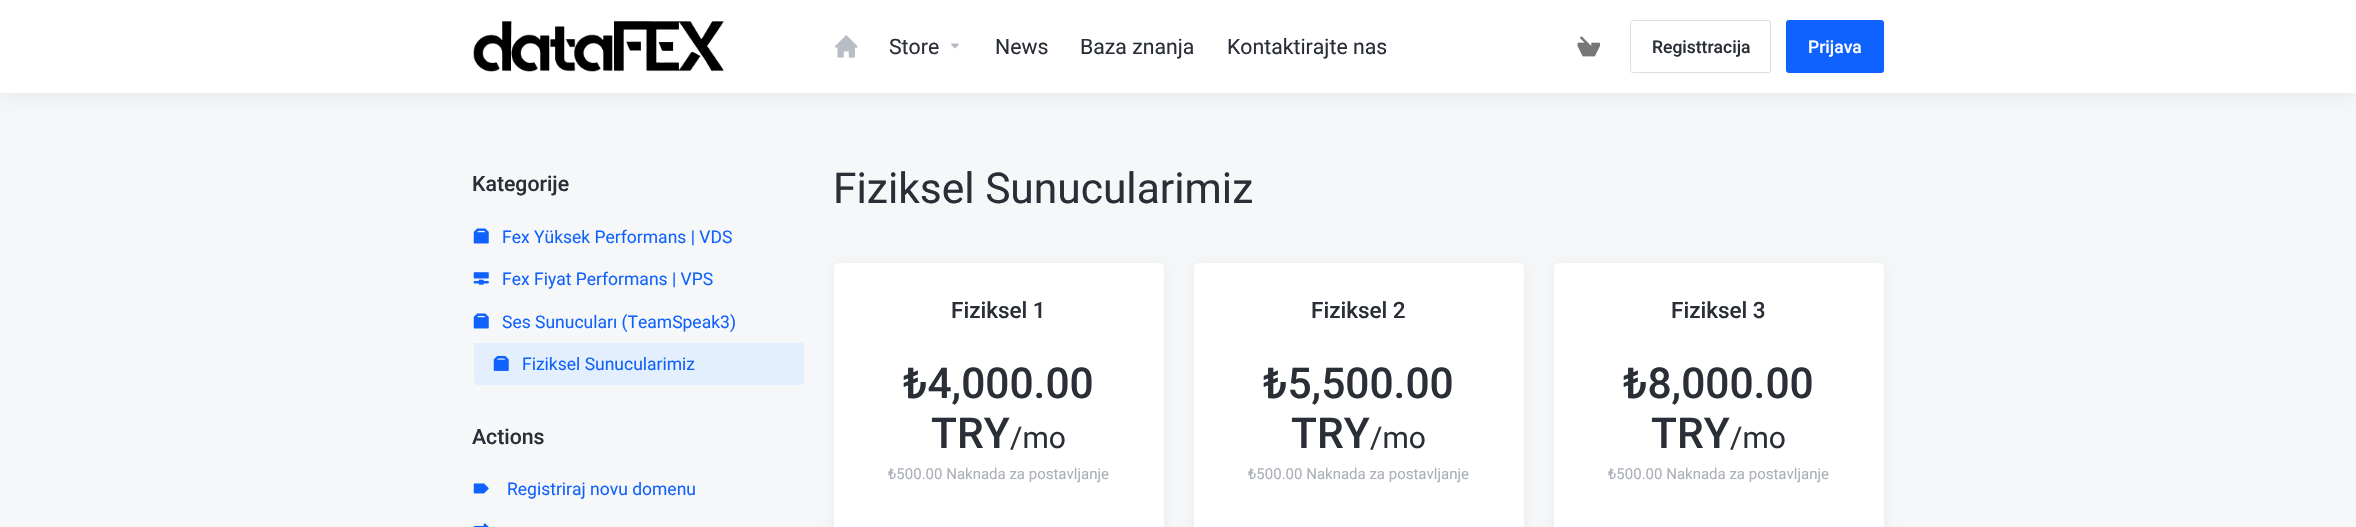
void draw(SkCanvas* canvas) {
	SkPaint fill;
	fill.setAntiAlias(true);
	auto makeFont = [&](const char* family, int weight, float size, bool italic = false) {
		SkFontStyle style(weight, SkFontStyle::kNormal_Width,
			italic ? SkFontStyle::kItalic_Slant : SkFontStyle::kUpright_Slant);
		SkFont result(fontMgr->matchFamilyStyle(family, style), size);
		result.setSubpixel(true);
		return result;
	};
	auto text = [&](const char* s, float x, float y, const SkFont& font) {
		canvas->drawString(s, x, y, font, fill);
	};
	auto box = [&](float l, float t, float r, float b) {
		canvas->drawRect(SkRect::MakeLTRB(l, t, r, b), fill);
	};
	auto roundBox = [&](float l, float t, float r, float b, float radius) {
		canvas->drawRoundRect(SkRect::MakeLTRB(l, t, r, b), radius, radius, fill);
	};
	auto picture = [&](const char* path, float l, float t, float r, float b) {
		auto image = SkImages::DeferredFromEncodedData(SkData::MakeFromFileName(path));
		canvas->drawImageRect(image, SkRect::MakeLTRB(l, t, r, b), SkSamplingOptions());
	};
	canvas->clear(0xFFF6F7F8);
	fill.setColor(0x14000000);
	fill.setMaskFilter(SkMaskFilter::MakeBlur(kNormal_SkBlurStyle, 9));
	canvas->drawRect(SkRect::MakeLTRB(0, 0, 2356, 93), fill);
	fill.setMaskFilter(nullptr);
	fill.setColor(0xFFFFFFFF);
	box(0, 0, 2356, 93);
	picture("image0.png", 473, 21, 724, 72);
	picture("image1.png", 835, 35, 858, 58);
	picture("image2.png", 951, 43, 959, 49);
	picture("image3.png", 1577, 36, 1600, 57);
	fill.setStyle(SkPaint::kStroke_Style);
	fill.setStrokeWidth(1);
	fill.setColor(0xFFDCDEE2);
	canvas->drawRoundRect(SkRect::MakeLTRB(1630.5f, 20.5f, 1770.5f, 72.5f), 2, 2, fill);
	fill.setStyle(SkPaint::kFill_Style);
	fill.setColor(0xFF1062FE);
	canvas->drawRoundRect(SkRect::MakeLTRB(1786.5f, 20.5f, 1883.5f, 72.5f), 2, 2, fill);
	fill.setStyle(SkPaint::kStroke_Style);
	canvas->drawRoundRect(SkRect::MakeLTRB(1786.5f, 20.5f, 1883.5f, 72.5f), 2, 2, fill);
	picture("image4.png", 473, 228, 489, 244);
	picture("image5.png", 473, 272, 489, 285);
	picture("image4.png", 473, 313, 489, 329);
	fill.setStyle(SkPaint::kFill_Style);
	fill.setColor(0xFFE3EFFC);
	canvas->drawPath(SkPathBuilder().moveTo(474, 343).lineTo(804, 343).lineTo(804, 381).cubicTo(804, 383, 802, 385, 800, 385).lineTo(478, 385).cubicTo(476, 385, 474, 383, 474, 381).close().detach(), fill);
	picture("image6.png", 493, 355, 509, 371);
	picture("image7.png", 473, 483, 489, 494);
	picture("image8.png", 473, 523, 489, 527);
	fill.setColor(0x0D000000);
	fill.setMaskFilter(SkMaskFilter::MakeBlur(kNormal_SkBlurStyle, 6));
	canvas->drawRoundRect(SkRect::MakeLTRB(834, 265, 1164, 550), 5, 5, fill);
	fill.setMaskFilter(nullptr);
	fill.setColor(0xFFFFFFFF);
	roundBox(834, 263, 1164, 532, 5);
	fill.setColor(0x0D000000);
	fill.setMaskFilter(SkMaskFilter::MakeBlur(kNormal_SkBlurStyle, 6));
	canvas->drawRoundRect(SkRect::MakeLTRB(1194, 265, 1524, 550), 5, 5, fill);
	fill.setMaskFilter(nullptr);
	fill.setColor(0xFFFFFFFF);
	roundBox(1194, 263, 1524, 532, 5);
	fill.setColor(0x0D000000);
	fill.setMaskFilter(SkMaskFilter::MakeBlur(kNormal_SkBlurStyle, 6));
	canvas->drawRoundRect(SkRect::MakeLTRB(1554, 265, 1884, 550), 5, 5, fill);
	fill.setMaskFilter(nullptr);
	fill.setColor(0xFFFFFFFF);
	roundBox(1554, 263, 1884, 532, 5);
	auto font1 = makeFont("Roboto", 400, 21.25f);
	fill.setColor(0xFF2A2E36);
	text("Store", 889, 54, font1);
	text("News", 995, 54, font1);
	text("Baza znanja", 1080, 54, font1);
	text("Kontaktirajte nas", 1227, 54, font1);
	auto font2 = makeFont("Roboto", 500, 17.5f);
	text("Registtracija", 1652, 53, font2);
	fill.setColor(0xFFFFFFFF);
	text("Prijava", 1808, 53, font2);
	auto font3 = makeFont("Roboto", 500, 21.25f);
	fill.setColor(0xFF2A2E36);
	text("Kategorije", 472, 191, font3);
	auto font4 = makeFont("Roboto", 400, 17.5f);
	fill.setColor(0xFF1062FE);
	text("Fex Yüksek Performans | VDS", 502, 243, font4);
	text("Fex Fiyat Performans | VPS", 502, 285, font4);
	text("Ses Sunucuları (TeamSpeak3)", 502, 328, font4);
	text("Fiziksel Sunucularimiz", 522, 370, font4);
	fill.setColor(0xFF2A2E36);
	text("Actions", 472, 444, font3);
	fill.setColor(0xFF1062FE);
	text("Registriraj novu domenu", 507, 495, font4);
	auto font5 = makeFont("Roboto", 400, 42.5f);
	fill.setColor(0xFF2A2E36);
	text("Fiziksel Sunucularimiz", 833, 203, font5);
	auto font6 = makeFont("Roboto", 500, 22.5f);
	text("Fiziksel 1", 951, 318, font6);
	auto font7 = makeFont("Roboto", 500, 42.5f);
	text("₺4,000.00", 903, 398, font7);
	text("TRY", 931, 448, font7);
	auto font8 = makeFont("Roboto", 400, 30);
	text("/mo", 1010, 448, font8);
	auto font9 = makeFont("Roboto", 400, 15);
	fill.setColor(0xFFACB0B8);
	text("₺500.00 Naknada za postavljanje", 888, 479, font9);
	fill.setColor(0xFF2A2E36);
	text("Fiziksel 2", 1311, 318, font6);
	text("₺5,500.00", 1263, 398, font7);
	text("TRY", 1291, 448, font7);
	text("/mo", 1370, 448, font8);
	fill.setColor(0xFFACB0B8);
	text("₺500.00 Naknada za postavljanje", 1248, 479, font9);
	fill.setColor(0xFF2A2E36);
	text("Fiziksel 3", 1671, 318, font6);
	text("₺8,000.00", 1623, 398, font7);
	text("TRY", 1651, 448, font7);
	text("/mo", 1730, 448, font8);
	fill.setColor(0xFFACB0B8);
	text("₺500.00 Naknada za postavljanje", 1608, 479, font9);
}
